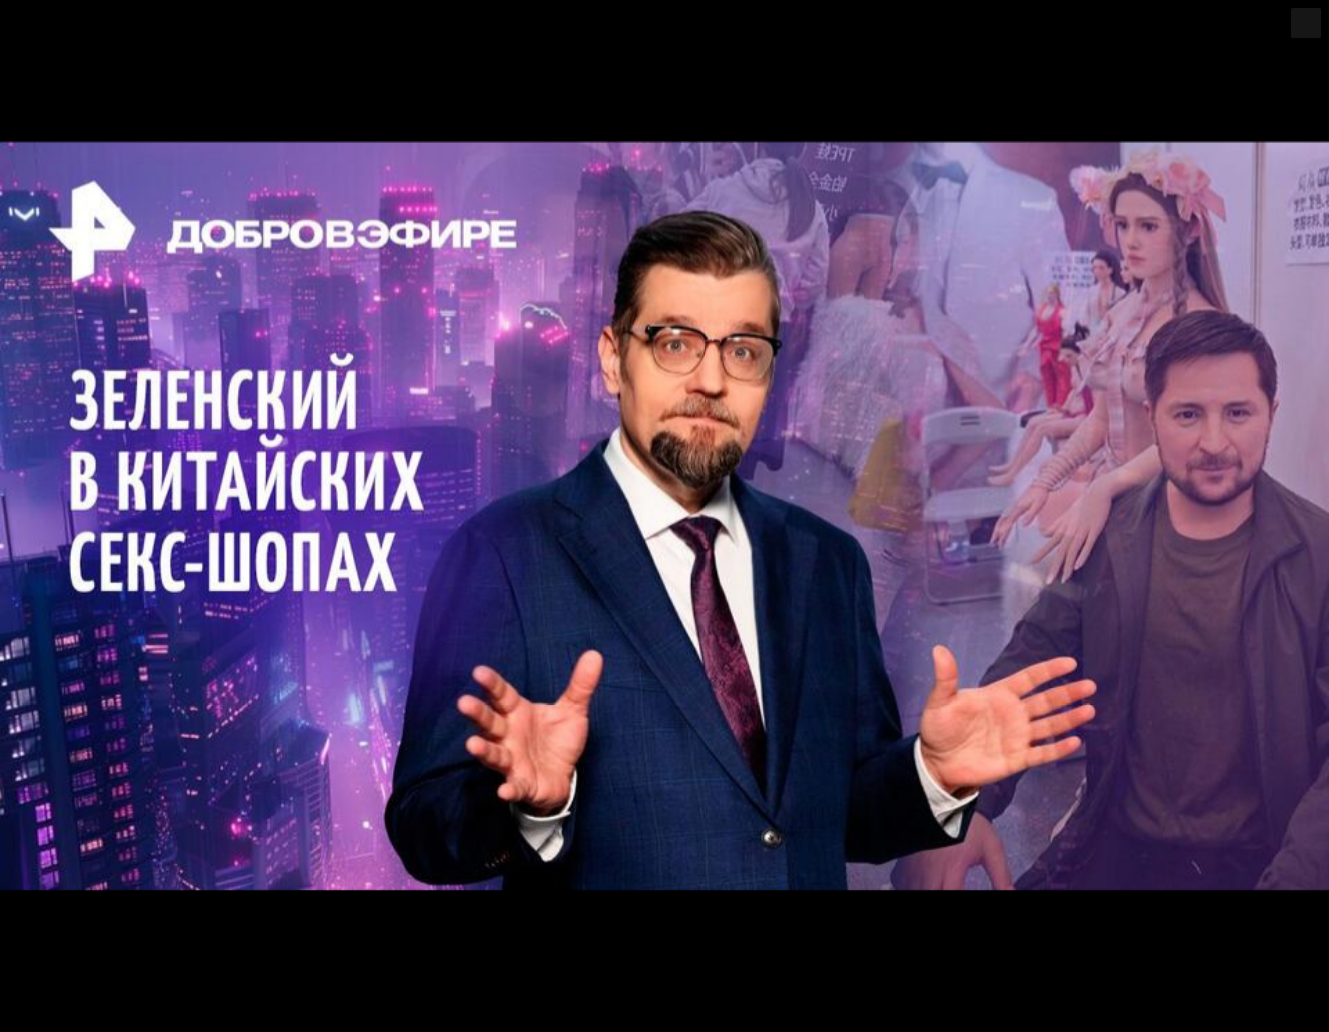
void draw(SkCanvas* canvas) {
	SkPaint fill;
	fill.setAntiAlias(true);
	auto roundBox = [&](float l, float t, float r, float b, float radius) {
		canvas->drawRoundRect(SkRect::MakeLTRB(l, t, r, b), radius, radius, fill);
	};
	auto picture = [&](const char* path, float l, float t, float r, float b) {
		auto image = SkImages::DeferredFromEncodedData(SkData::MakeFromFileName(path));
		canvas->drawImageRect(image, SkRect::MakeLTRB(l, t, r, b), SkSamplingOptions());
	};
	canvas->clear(0xFF000000);
	fill.setColor(0xFF161616);
	roundBox(1291, 8, 1321, 38, 2);
	picture("image0.png", 0, 141, 1329, 891);
}
